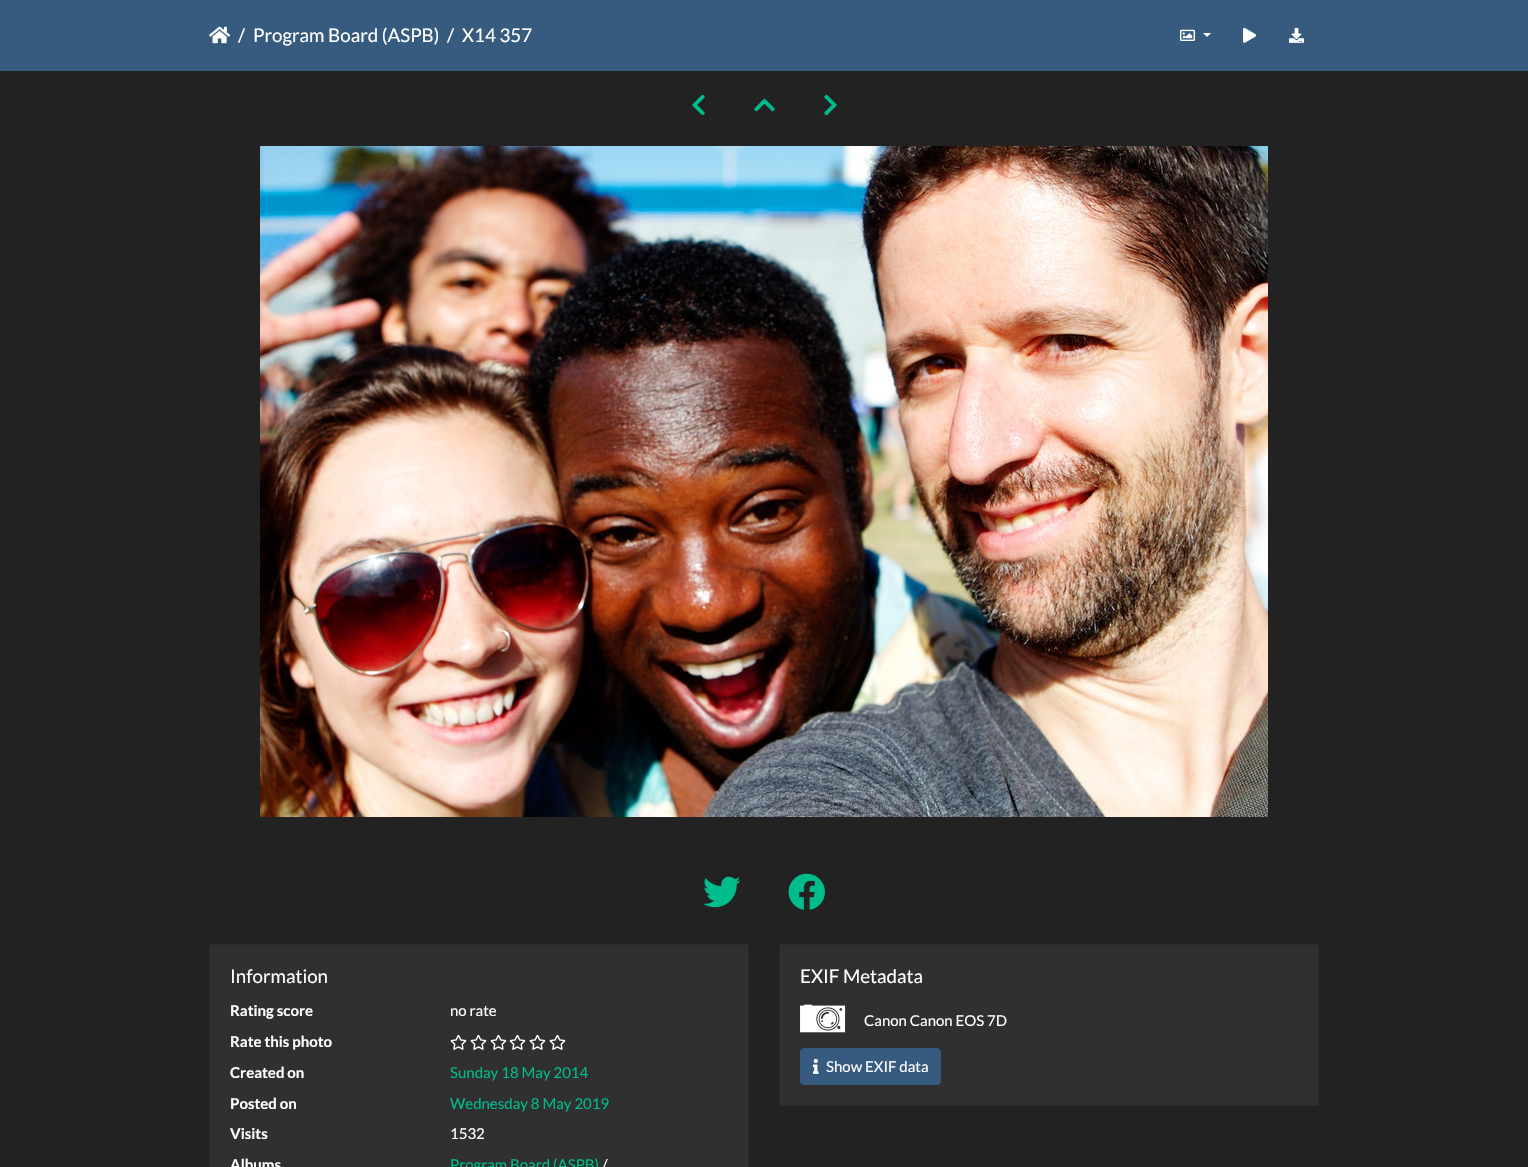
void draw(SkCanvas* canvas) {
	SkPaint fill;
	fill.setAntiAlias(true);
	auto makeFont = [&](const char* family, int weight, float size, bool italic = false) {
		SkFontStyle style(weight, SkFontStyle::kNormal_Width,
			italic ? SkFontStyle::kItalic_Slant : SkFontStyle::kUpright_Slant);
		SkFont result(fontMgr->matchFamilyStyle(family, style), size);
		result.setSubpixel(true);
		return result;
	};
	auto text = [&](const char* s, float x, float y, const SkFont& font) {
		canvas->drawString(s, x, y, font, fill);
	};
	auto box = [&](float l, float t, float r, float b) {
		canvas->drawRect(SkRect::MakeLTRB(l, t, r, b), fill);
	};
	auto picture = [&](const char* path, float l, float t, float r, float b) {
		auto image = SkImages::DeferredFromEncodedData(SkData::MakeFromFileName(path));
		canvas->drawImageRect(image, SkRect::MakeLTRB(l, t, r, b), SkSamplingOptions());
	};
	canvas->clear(0xFF222222);
	fill.setColor(0xFF375A7F);
	box(0, 0, 1528, 71);
	picture("image0.png", 209, 26, 230, 44);
	picture("image1.png", 1180, 29, 1195, 41);
	fill.setColor(0xFFFFFFFF);
	canvas->drawPath(SkPathBuilder().moveTo(1203, 33).lineTo(1211, 33).lineTo(1207, 37).close().detach(), fill);
	picture("image2.png", 1243, 27, 1257, 43);
	picture("image3.png", 1289, 27, 1304, 43);
	picture("image4.png", 692, 94, 705, 116);
	picture("image5.png", 754, 98, 775, 112);
	picture("image6.png", 824, 94, 837, 116);
	picture("image7.png", 260, 146, 1268, 817);
	picture("image8.png", 703, 876, 741, 908);
	picture("image9.png", 788, 873, 825, 910);
	fill.setColor(0xFF303030);
	canvas->drawRoundRect(SkRect::MakeLTRB(209.5f, 944.5f, 748.5f, 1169.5f), 1.5f, 1.5f, fill);
	fill.setStyle(SkPaint::kStroke_Style);
	fill.setStrokeWidth(1);
	fill.setColor(0xFF2A2A2A);
	canvas->drawRoundRect(SkRect::MakeLTRB(209.5f, 944.5f, 748.5f, 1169.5f), 1.5f, 1.5f, fill);
	picture("image10.png", 450, 1034, 467, 1050);
	picture("image10.png", 470, 1034, 487, 1050);
	picture("image10.png", 490, 1034, 507, 1050);
	picture("image10.png", 509, 1034, 526, 1050);
	picture("image10.png", 529, 1034, 546, 1050);
	picture("image10.png", 549, 1034, 566, 1050);
	fill.setStyle(SkPaint::kFill_Style);
	fill.setColor(0xFF303030);
	canvas->drawRoundRect(SkRect::MakeLTRB(779.5f, 944.5f, 1318.5f, 1105.5f), 1.5f, 1.5f, fill);
	fill.setStyle(SkPaint::kStroke_Style);
	fill.setColor(0xFF2A2A2A);
	canvas->drawRoundRect(SkRect::MakeLTRB(779.5f, 944.5f, 1318.5f, 1105.5f), 1.5f, 1.5f, fill);
	picture("image11.png", 800, 1004, 846, 1033);
	fill.setStyle(SkPaint::kFill_Style);
	fill.setColor(0xFF375A7F);
	canvas->drawRoundRect(SkRect::MakeLTRB(800.5f, 1048.5f, 940.5f, 1084.5f), 3.5f, 3.5f, fill);
	fill.setStyle(SkPaint::kStroke_Style);
	canvas->drawRoundRect(SkRect::MakeLTRB(800.5f, 1048.5f, 940.5f, 1084.5f), 3.5f, 3.5f, fill);
	picture("image12.png", 813, 1058, 819, 1074);
	auto font1 = makeFont("Lato", 400, 18.75f);
	fill.setStyle(SkPaint::kFill_Style);
	fill.setColor(0xFFFFFFFF);
	text("/", 238, 42, font1);
	text("Program Board (ASPB)", 253, 42, font1);
	text("/", 447, 42, font1);
	text("X14 357", 462, 42, font1);
	text("Information", 230, 983, font1);
	auto font2 = makeFont("Lato", 700, 15);
	text("Rating score", 230, 1016, font2);
	auto font3 = makeFont("Lato", 400, 15);
	text("no rate", 450, 1016, font3);
	text("Rate this photo", 230, 1047, font2);
	text("Created on", 230, 1078, font2);
	fill.setColor(0xFF00BC8C);
	text("Sunday 18 May 2014", 450, 1078, font3);
	fill.setColor(0xFFFFFFFF);
	text("Posted on", 230, 1109, font2);
	fill.setColor(0xFF00BC8C);
	text("Wednesday 8 May 2019", 450, 1109, font3);
	fill.setColor(0xFFFFFFFF);
	text("Visits", 230, 1139, font2);
	text("1532", 450, 1139, font3);
	text("Albums", 230, 1170, font2);
	fill.setColor(0xFF00BC8C);
	text("Program Board (ASPB)", 450, 1170, font3);
	fill.setColor(0xFFFFFFFF);
	text("/", 602, 1170, font3);
	text("EXIF Metadata", 800, 983, font1);
	text("Canon Canon EOS 7D", 864, 1026, font3);
	text("Show EXIF data", 826, 1072, font3);
}
